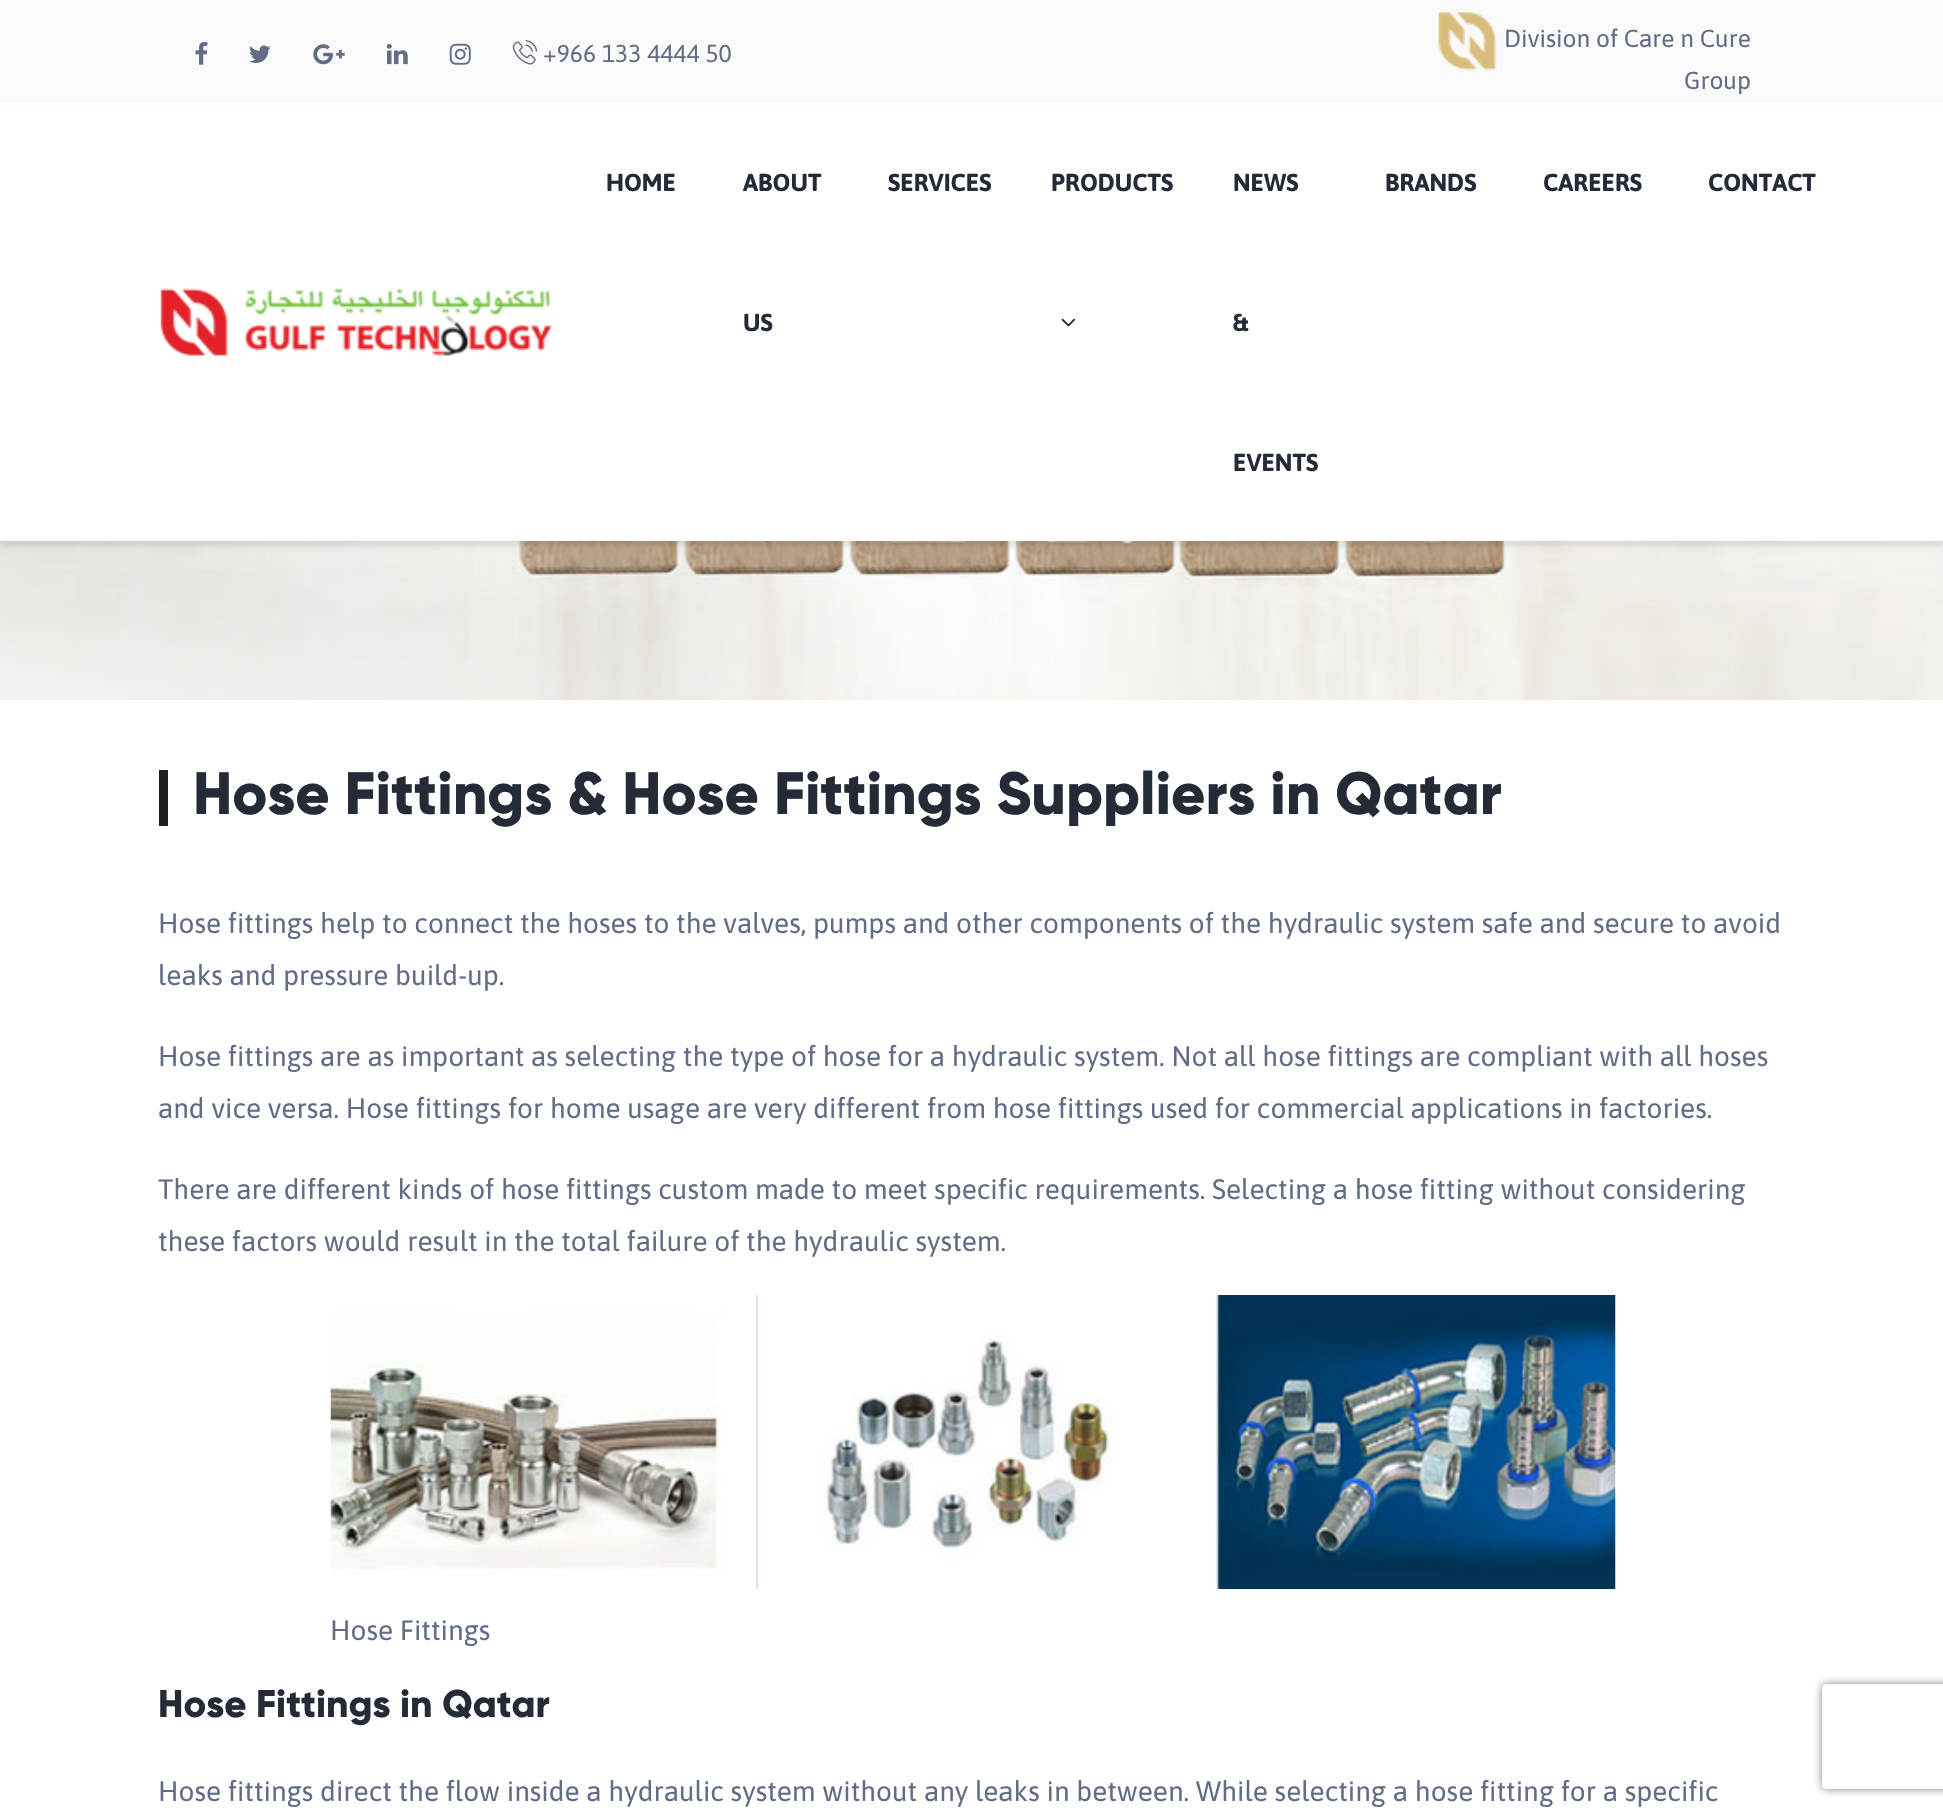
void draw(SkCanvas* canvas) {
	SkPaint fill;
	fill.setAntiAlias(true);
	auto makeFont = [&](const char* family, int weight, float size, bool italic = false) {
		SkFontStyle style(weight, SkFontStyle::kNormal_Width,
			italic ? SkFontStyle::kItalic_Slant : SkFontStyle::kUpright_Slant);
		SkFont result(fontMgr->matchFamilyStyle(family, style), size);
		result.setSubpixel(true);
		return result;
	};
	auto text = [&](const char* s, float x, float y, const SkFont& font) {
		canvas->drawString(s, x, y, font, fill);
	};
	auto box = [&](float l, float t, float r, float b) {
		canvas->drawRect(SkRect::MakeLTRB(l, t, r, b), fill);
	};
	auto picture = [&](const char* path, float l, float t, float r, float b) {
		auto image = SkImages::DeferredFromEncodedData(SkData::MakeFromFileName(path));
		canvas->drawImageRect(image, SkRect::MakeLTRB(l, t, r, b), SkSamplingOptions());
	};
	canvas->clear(0xFFFFFFFF);
	picture("image9.png", 0, 541, 1943, 700);
	fill.setColor(0x1A000000);
	fill.setMaskFilter(SkMaskFilter::MakeBlur(kNormal_SkBlurStyle, 2.5f));
	canvas->drawRect(SkRect::MakeLTRB(0, 109, 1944, 546), fill);
	fill.setMaskFilter(nullptr);
	fill.setColor(0xFFFAFAFA);
	box(0, 0, 1943, 103);
	picture("image0.png", 195, 42, 208, 65);
	picture("image1.png", 249, 45, 271, 63);
	picture("image2.png", 313, 44, 345, 65);
	picture("image3.png", 386, 44, 408, 65);
	picture("image4.png", 449, 43, 471, 65);
	picture("image5.png", 512, 40, 538, 65);
	picture("image6.png", 1438, 11, 1497, 71);
	fill.setColor(0xFFFFFFFF);
	box(0, 106, 1943, 541);
	picture("image7.png", 160, 288, 552, 356);
	picture("image8.png", 1061, 318, 1076, 327);
	fill.setColor(0xFF231F20);
	box(159, 770, 168, 826);
	picture("image10.png", 330, 1295, 1616, 1589);
	canvas->save();
	canvas->clipPath(SkPathBuilder(SkPathFillType::kEvenOdd).moveTo(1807, 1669).lineTo(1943, 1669).lineTo(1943, 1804).lineTo(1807, 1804).close().moveTo(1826, 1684).lineTo(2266, 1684).cubicTo(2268, 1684, 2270, 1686, 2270, 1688).lineTo(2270, 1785).cubicTo(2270, 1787, 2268, 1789, 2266, 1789).lineTo(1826, 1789).cubicTo(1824, 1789, 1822, 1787, 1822, 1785).lineTo(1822, 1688).cubicTo(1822, 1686, 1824, 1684, 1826, 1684).close().detach(), true);
	fill.setColor(0xFF808080);
	fill.setMaskFilter(SkMaskFilter::MakeBlur(kNormal_SkBlurStyle, 4.5f));
	canvas->drawRoundRect(SkRect::MakeLTRB(1822, 1684, 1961, 1789), 4, 4, fill);
	fill.setMaskFilter(nullptr);
	canvas->restore();
	auto font1 = makeFont("Asap", 400, 24.5f);
	fill.setColor(0xFF626C84);
	text("+966 133 4444 50", 543, 62, font1);
	text("Division of Care n Cure", 1504, 47, font1);
	text("Group", 1684, 89, font1);
	auto font2 = makeFont("Asap", 700, 24.5f);
	fill.setColor(0xFF252A37);
	text("HOME", 606, 191, font2);
	text("ABOUT", 743, 191, font2);
	text("US", 743, 331, font2);
	text("SERVICES", 888, 191, font2);
	text("PRODUCTS", 1051, 191, font2);
	text("NEWS", 1233, 191, font2);
	text("&", 1233, 331, font2);
	text("EVENTS", 1233, 471, font2);
	text("BRANDS", 1385, 191, font2);
	text("CAREERS", 1543, 191, font2);
	text("CONTACT", 1708, 191, font2);
	auto font3 = makeFont("gilroy", 400, 59.5f);
	text("Hose Fittings & Hose Fittings Suppliers in Qatar", 193, 814, font3);
	auto font4 = makeFont("Asap", 400, 28);
	fill.setColor(0xFF626C84);
	text("Hose fittings help to connect the hoses to the valves, pumps and other components of the hydraulic system safe and secure to avoid", 158, 933, font4);
	text("leaks and pressure build-up.", 158, 985, font4);
	text("Hose fittings are as important as selecting the type of hose for a hydraulic system. Not all hose fittings are compliant with all hoses", 158, 1066, font4);
	text("and vice versa. Hose fittings for home usage are very different from hose fittings used for commercial applications in factories.", 158, 1118, font4);
	text("There are different kinds of hose fittings custom made to meet specific requirements. Selecting a hose fitting without considering", 158, 1199, font4);
	text("these factors would result in the total failure of the hydraulic system.", 158, 1251, font4);
	text("Hose Fittings", 330, 1640, font4);
	auto font5 = makeFont("gilroy", 400, 38.5f);
	fill.setColor(0xFF252A37);
	text("Hose Fittings in Qatar", 158, 1717, font5);
	fill.setColor(0xFF626C84);
	text("Hose fittings direct the flow inside a hydraulic system without any leaks in between. While selecting a hose fitting for a specific", 158, 1801, font4);
}
